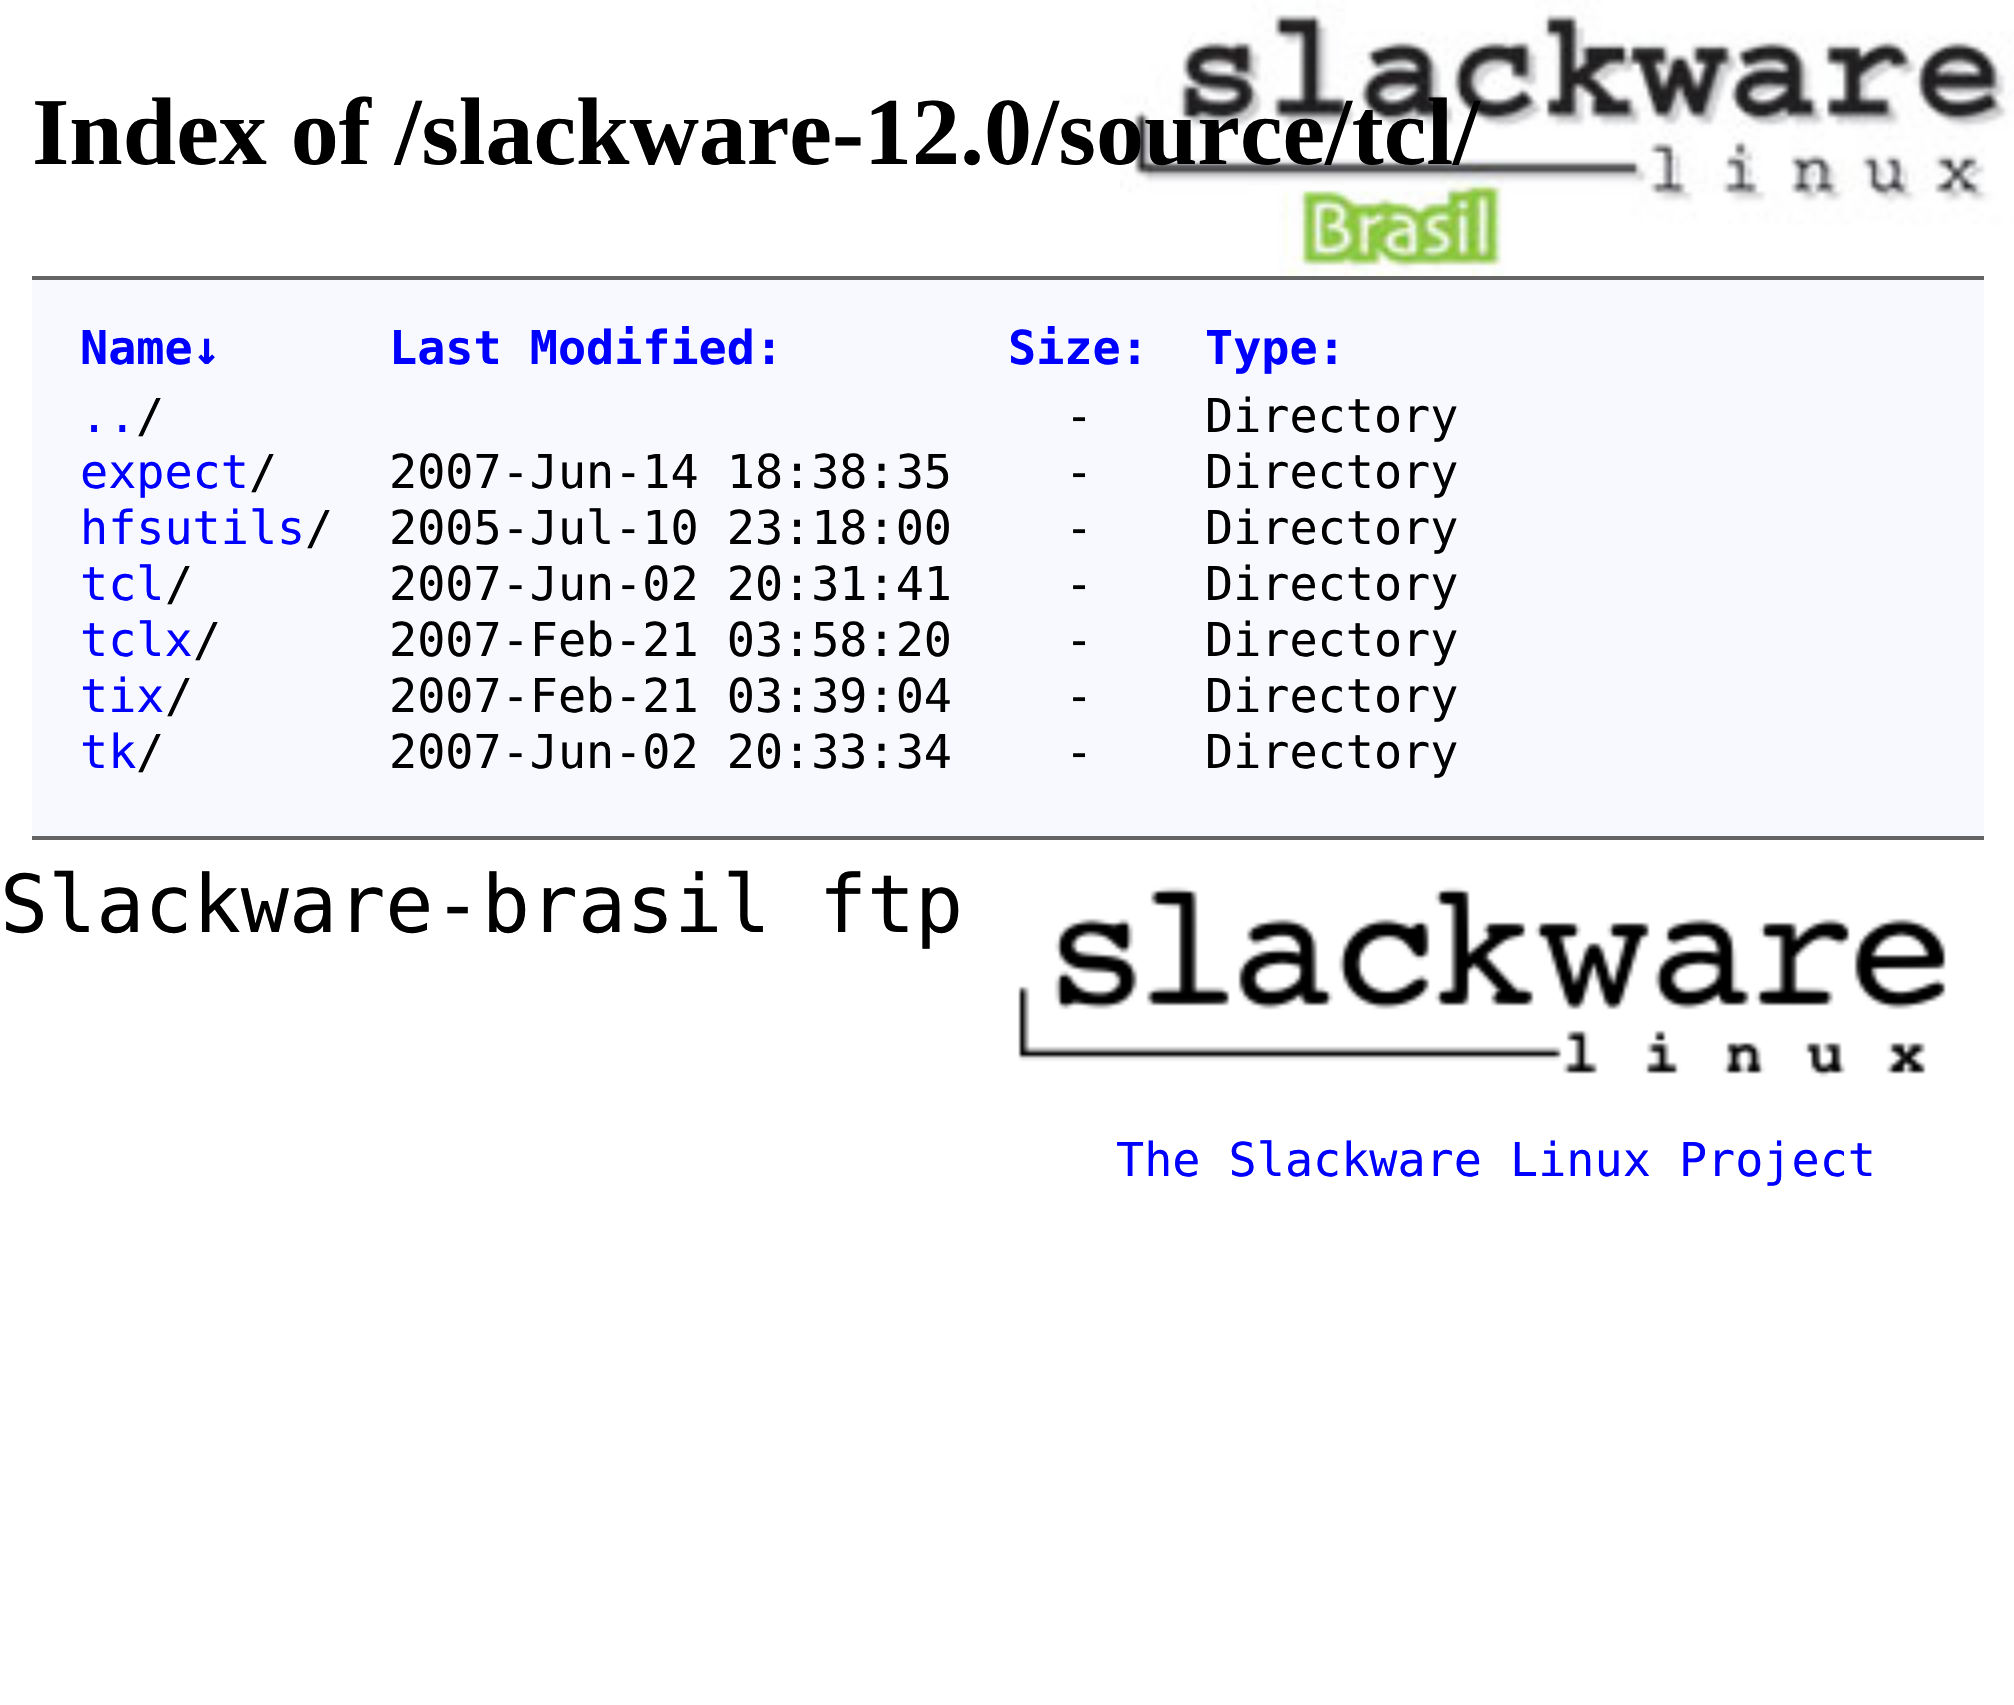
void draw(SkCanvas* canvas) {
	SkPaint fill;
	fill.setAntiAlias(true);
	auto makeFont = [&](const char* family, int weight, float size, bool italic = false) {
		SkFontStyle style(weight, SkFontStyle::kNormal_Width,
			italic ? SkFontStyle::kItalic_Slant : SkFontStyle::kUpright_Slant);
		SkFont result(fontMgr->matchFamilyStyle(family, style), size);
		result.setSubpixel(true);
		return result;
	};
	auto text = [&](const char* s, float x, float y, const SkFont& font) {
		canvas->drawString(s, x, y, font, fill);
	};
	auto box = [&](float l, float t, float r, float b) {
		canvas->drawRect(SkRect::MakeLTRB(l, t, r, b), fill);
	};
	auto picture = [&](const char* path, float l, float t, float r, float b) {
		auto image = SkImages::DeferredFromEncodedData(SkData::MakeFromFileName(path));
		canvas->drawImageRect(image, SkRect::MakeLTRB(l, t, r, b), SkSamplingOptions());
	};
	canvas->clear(0xFFFFFFFF);
	picture("image0.png", 1120, 0, 2014, 284);
	fill.setColor(0xFFF8F8FF);
	box(32, 280, 1984, 836);
	fill.setColor(0xFF646464);
	box(32, 276, 1984, 280);
	box(32, 836, 1984, 840);
	picture("image1.png", 1015, 871, 1946, 1078);
	auto font1 = makeFont("Liberation Serif", 700, 96);
	fill.setColor(0xFF000000);
	text("Index of /slackware-12.0/source/tcl/", 32, 164, font1);
	auto font2 = makeFont("DejaVu Sans Mono", 700, 46.75f);
	fill.setColor(0xFF0000FF);
	text("Name↓", 80, 364, font2);
	text("Last Modified", 389, 364, font2);
	text(":", 755, 364, font2);
	text("Size:", 1008, 364, font2);
	text("Type:", 1205, 364, font2);
	auto font3 = makeFont("DejaVu Sans Mono", 400, 46.75f);
	text("..", 80, 432, font3);
	fill.setColor(0xFF000000);
	text("/", 136, 432, font3);
	text("-", 1065, 432, font3);
	text("Directory", 1205, 432, font3);
	fill.setColor(0xFF0000FF);
	text("expect", 80, 488, font3);
	fill.setColor(0xFF000000);
	text("/", 249, 488, font3);
	text("2007-Jun-14 18:38:35", 389, 488, font3);
	text("-", 1065, 488, font3);
	text("Directory", 1205, 488, font3);
	fill.setColor(0xFF0000FF);
	text("hfsutils", 80, 544, font3);
	fill.setColor(0xFF000000);
	text("/", 305, 544, font3);
	text("2005-Jul-10 23:18:00", 389, 544, font3);
	text("-", 1065, 544, font3);
	text("Directory", 1205, 544, font3);
	fill.setColor(0xFF0000FF);
	text("tcl", 80, 600, font3);
	fill.setColor(0xFF000000);
	text("/", 165, 600, font3);
	text("2007-Jun-02 20:31:41", 389, 600, font3);
	text("-", 1065, 600, font3);
	text("Directory", 1205, 600, font3);
	fill.setColor(0xFF0000FF);
	text("tclx", 80, 656, font3);
	fill.setColor(0xFF000000);
	text("/", 193, 656, font3);
	text("2007-Feb-21 03:58:20", 389, 656, font3);
	text("-", 1065, 656, font3);
	text("Directory", 1205, 656, font3);
	fill.setColor(0xFF0000FF);
	text("tix", 80, 712, font3);
	fill.setColor(0xFF000000);
	text("/", 165, 712, font3);
	text("2007-Feb-21 03:39:04", 389, 712, font3);
	text("-", 1065, 712, font3);
	text("Directory", 1205, 712, font3);
	fill.setColor(0xFF0000FF);
	text("tk", 80, 768, font3);
	fill.setColor(0xFF000000);
	text("/", 136, 768, font3);
	text("2007-Jun-02 20:33:34", 389, 768, font3);
	text("-", 1065, 768, font3);
	text("Directory", 1205, 768, font3);
	auto font4 = makeFont("DejaVu Sans Mono", 400, 80);
	text("Slackware-brasil ftp", 0, 932, font4);
	fill.setColor(0xFF0000FF);
	text("The Slackware Linux Project", 1116, 1176, font3);
}
